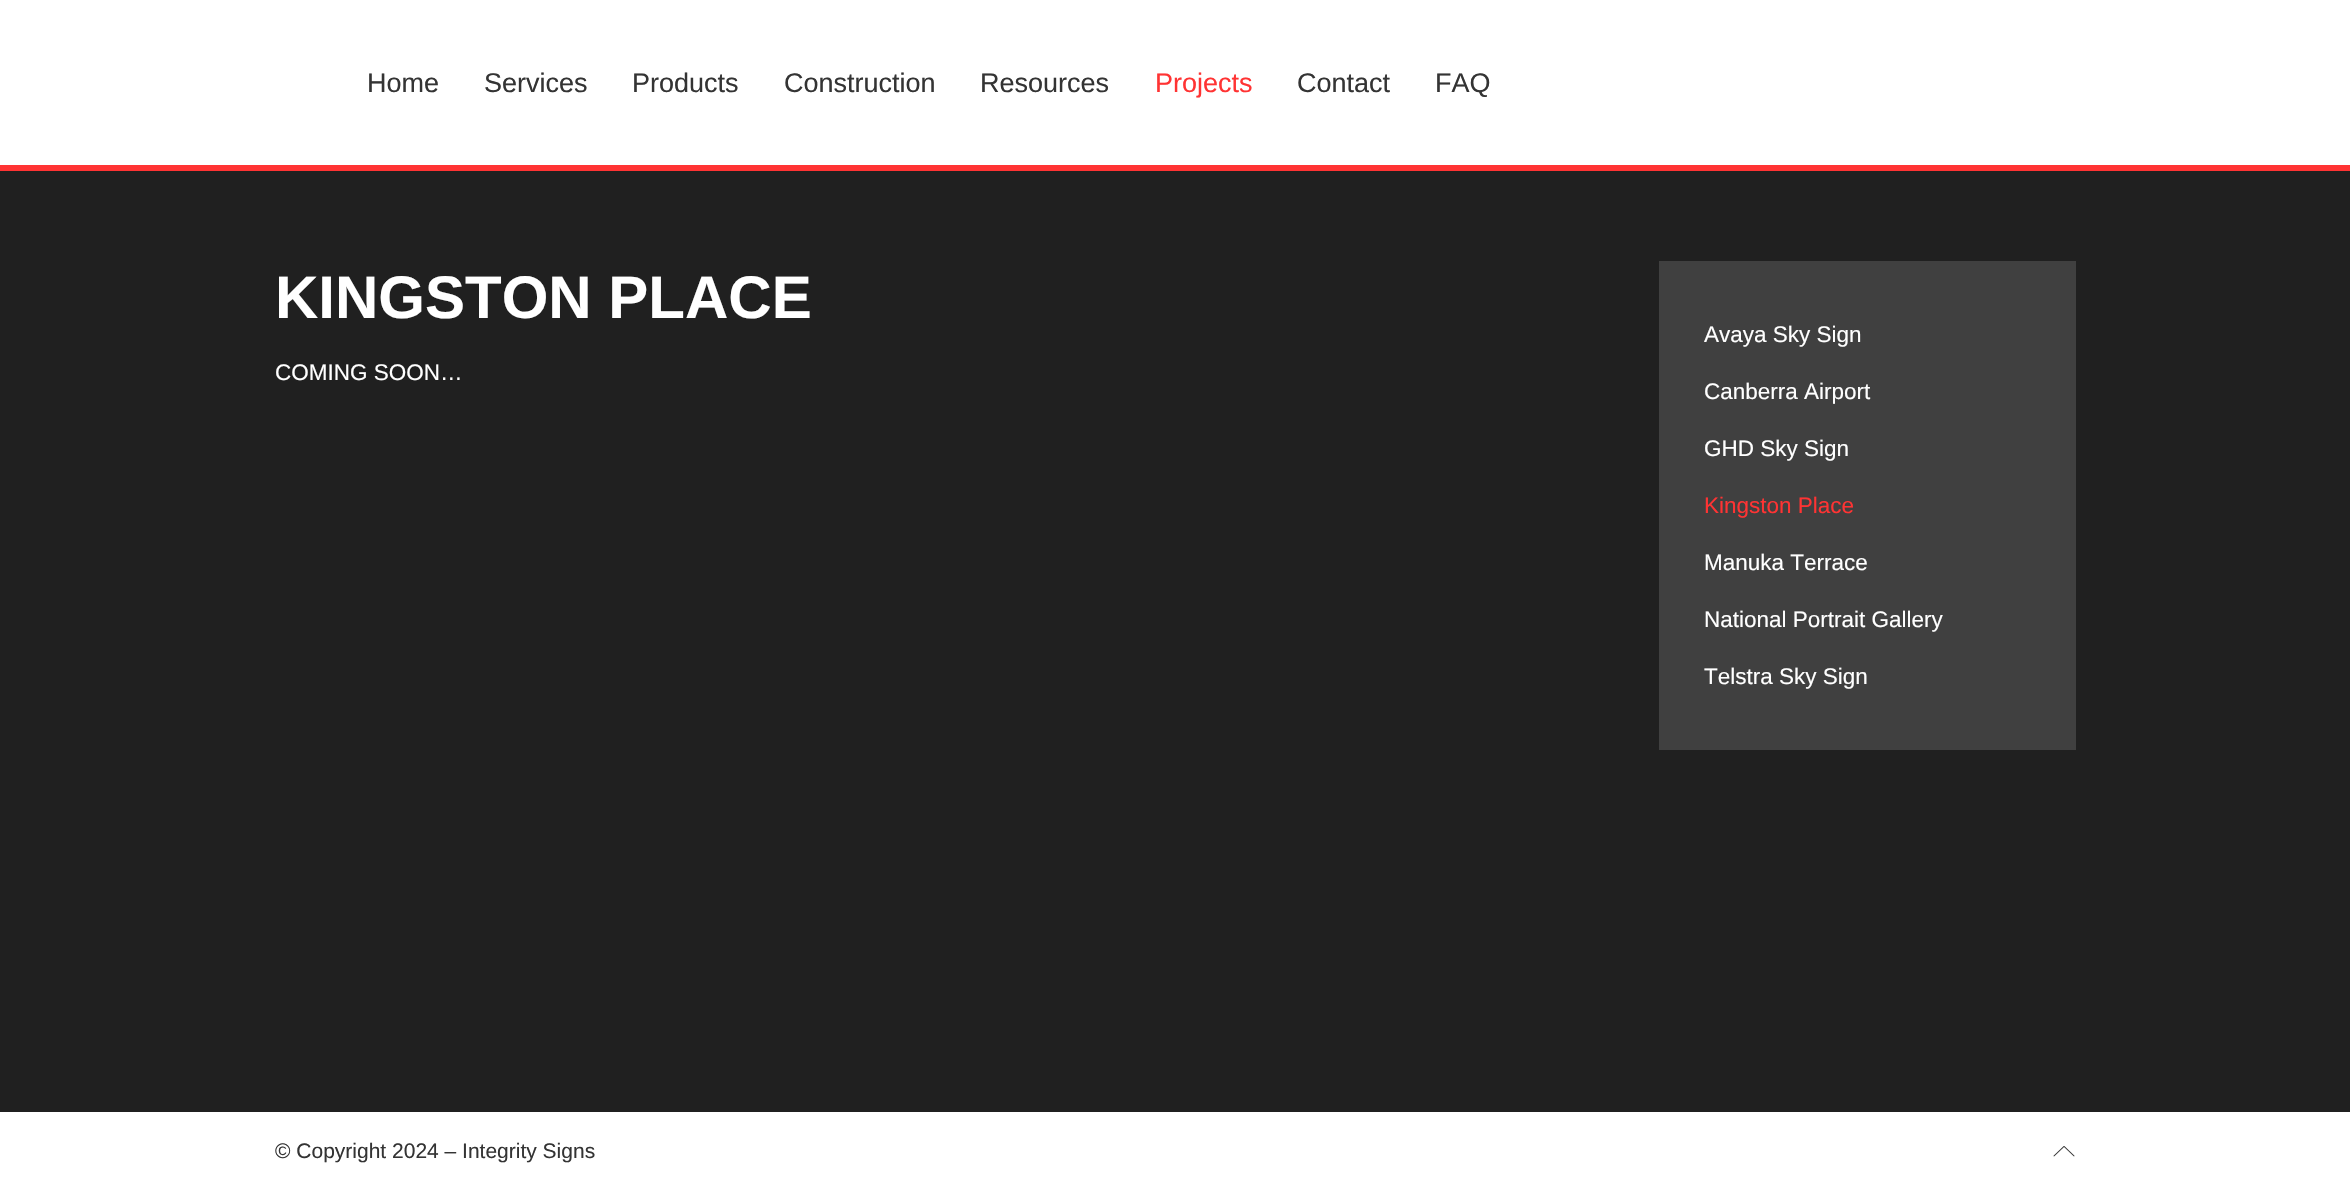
void draw(SkCanvas* canvas) {
	SkPaint fill;
	fill.setAntiAlias(true);
	auto makeFont = [&](const char* family, int weight, float size, bool italic = false) {
		SkFontStyle style(weight, SkFontStyle::kNormal_Width,
			italic ? SkFontStyle::kItalic_Slant : SkFontStyle::kUpright_Slant);
		SkFont result(fontMgr->matchFamilyStyle(family, style), size);
		result.setSubpixel(true);
		return result;
	};
	auto text = [&](const char* s, float x, float y, const SkFont& font) {
		canvas->drawString(s, x, y, font, fill);
	};
	auto box = [&](float l, float t, float r, float b) {
		canvas->drawRect(SkRect::MakeLTRB(l, t, r, b), fill);
	};
	auto picture = [&](const char* path, float l, float t, float r, float b) {
		auto image = SkImages::DeferredFromEncodedData(SkData::MakeFromFileName(path));
		canvas->drawImageRect(image, SkRect::MakeLTRB(l, t, r, b), SkSamplingOptions());
	};
	canvas->clear(0xFF202020);
	fill.setColor(0xFFFF3333);
	box(0, 165, 2350, 171);
	fill.setColor(0xFFFFFFFF);
	box(0, 0, 2350, 165);
	fill.setColor(0xFF404040);
	box(1659, 261, 2076, 750);
	fill.setColor(0xFFFFFFFF);
	box(0, 1112, 2350, 1189);
	picture("image0.png", 2053, 1146, 2075, 1157);
	auto font1 = makeFont("Liberation Sans", 400, 27);
	fill.setColor(0xFF343434);
	text("Home", 367, 92, font1);
	text("Services", 484, 92, font1);
	text("Products", 632, 92, font1);
	text("Construction", 784, 92, font1);
	text("Resources", 980, 92, font1);
	fill.setColor(0xFFFF3333);
	text("Projects", 1155, 92, font1);
	fill.setColor(0xFF343434);
	text("Contact", 1297, 92, font1);
	text("FAQ", 1435, 92, font1);
	auto font2 = makeFont("Liberation Sans", 700, 60);
	fill.setColor(0xFFFFFFFF);
	text("KINGSTON PLACE", 275, 318, font2);
	auto font3 = makeFont("Liberation Sans", 400, 22.5f);
	text("COMING SOON…", 275, 380, font3);
	text("Avaya Sky Sign", 1704, 342, font3);
	text("Canberra Airport", 1704, 399, font3);
	text("GHD Sky Sign", 1704, 456, font3);
	fill.setColor(0xFFFF3333);
	text("Kingston Place", 1704, 513, font3);
	fill.setColor(0xFFFFFFFF);
	text("Manuka Terrace", 1704, 570, font3);
	text("National Portrait Gallery", 1704, 627, font3);
	text("Telstra Sky Sign", 1704, 684, font3);
	auto font4 = makeFont("Liberation Sans", 400, 21);
	fill.setColor(0xFF343434);
	text("© Copyright 2024 – Integrity Signs", 275, 1158, font4);
}
